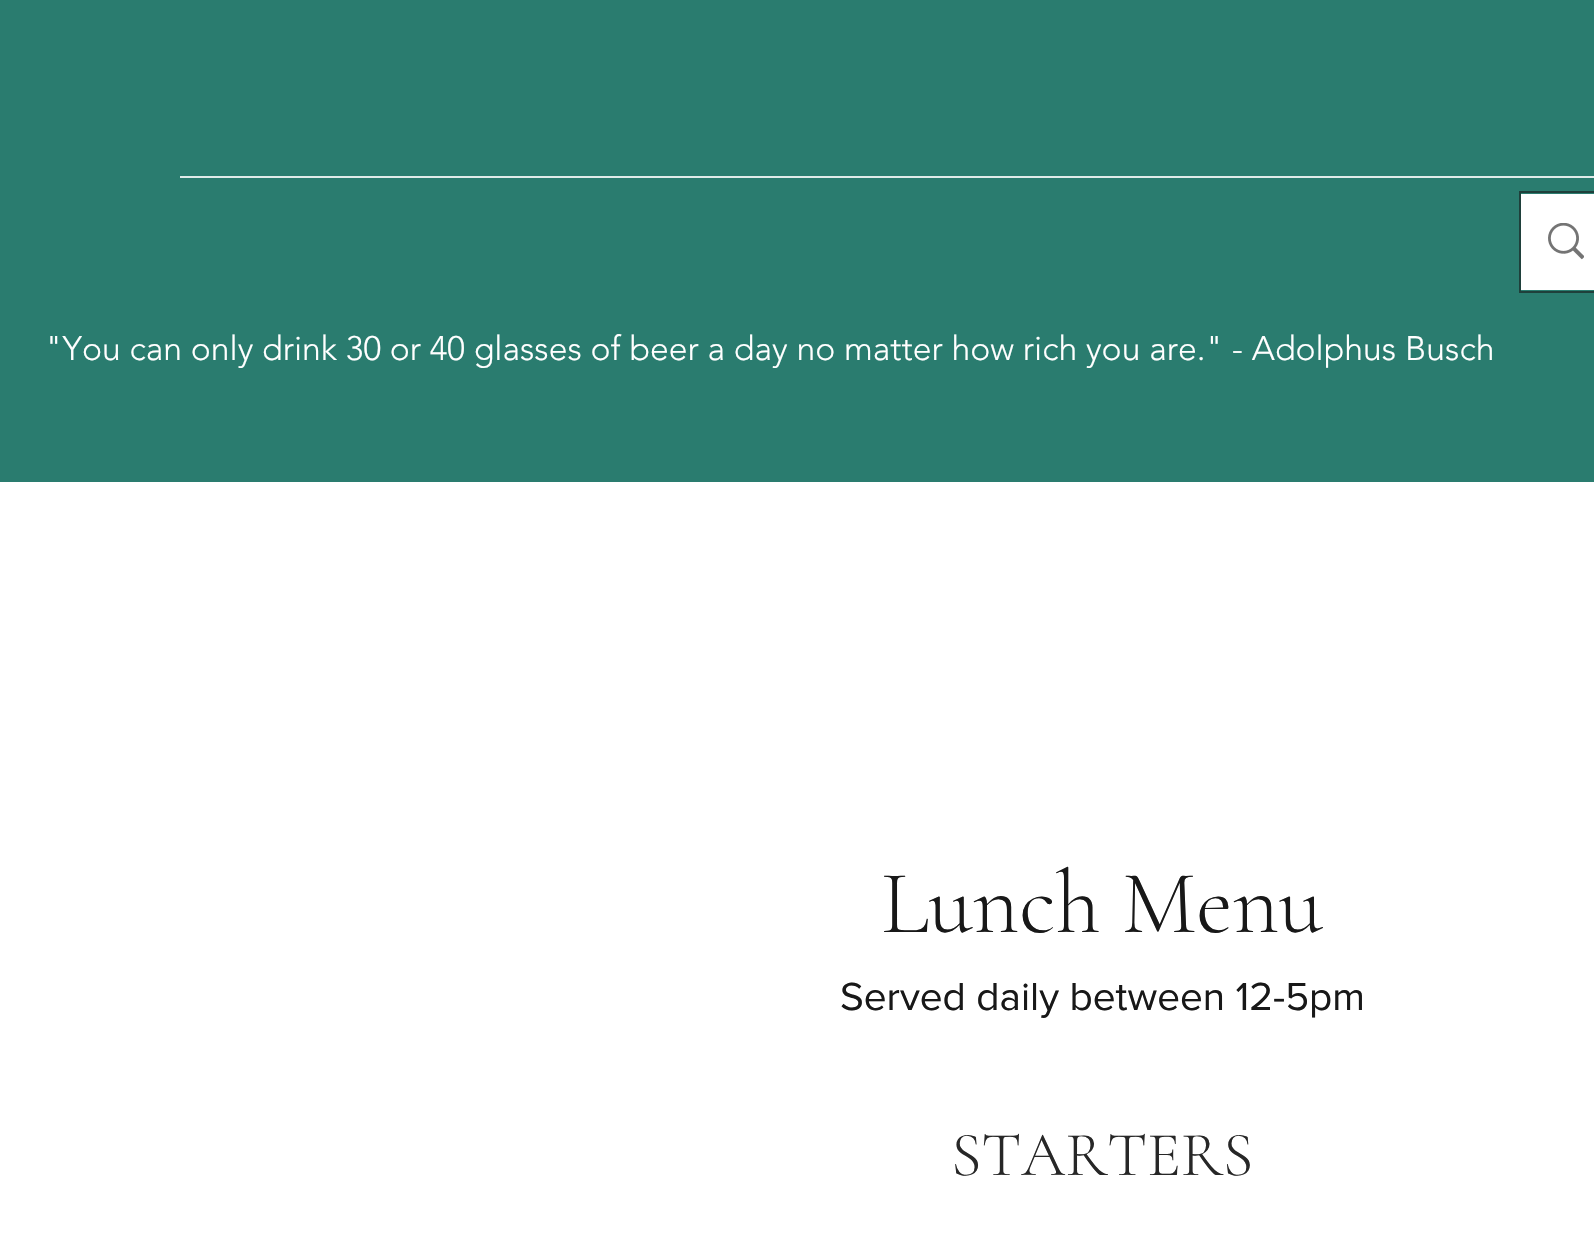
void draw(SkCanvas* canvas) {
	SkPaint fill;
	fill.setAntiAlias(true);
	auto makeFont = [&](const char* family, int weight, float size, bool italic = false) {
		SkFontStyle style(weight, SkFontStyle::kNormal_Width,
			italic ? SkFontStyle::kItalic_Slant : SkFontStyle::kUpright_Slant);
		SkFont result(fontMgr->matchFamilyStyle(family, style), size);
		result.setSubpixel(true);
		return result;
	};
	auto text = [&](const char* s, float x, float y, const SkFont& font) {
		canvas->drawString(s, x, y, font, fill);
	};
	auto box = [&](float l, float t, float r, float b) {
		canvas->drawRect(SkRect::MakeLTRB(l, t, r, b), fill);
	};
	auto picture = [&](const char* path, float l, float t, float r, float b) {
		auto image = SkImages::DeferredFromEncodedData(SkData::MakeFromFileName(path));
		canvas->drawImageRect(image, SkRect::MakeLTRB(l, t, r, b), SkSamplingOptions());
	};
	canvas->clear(0xFFFFFFFF);
	fill.setColor(0xFF2A7C6F);
	box(0, 0, 1594, 482);
	fill.setColor(0xFFDFEBE9);
	box(180, 176, 1594, 178);
	fill.setStyle(SkPaint::kStroke_Style);
	fill.setStrokeWidth(2);
	fill.setColor(0xFF1F403B);
	canvas->drawRect(SkRect::MakeLTRB(1520, 192, 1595, 292), fill);
	fill.setStyle(SkPaint::kFill_Style);
	fill.setColor(0xFFFFFFFF);
	box(1521, 194, 1594, 290);
	picture("image0.png", 1548, 223, 1584, 260);
	auto font1 = makeFont("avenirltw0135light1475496", 300, 33.75f);
	text("\"You can only drink 30 or 40 glasses of beer a day no matter how rich you are.\" - Adolphus Busch", 45, 360, font1);
	auto font2 = makeFont("Cormorant Garamond", 300, 90);
	fill.setColor(0xFF181818);
	text("Lunch Menu", 881, 932, font2);
	auto font3 = makeFont("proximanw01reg", 400, 40.5f);
	text("Served daily between 12-5pm", 840, 1010, font3);
	auto font4 = makeFont("Cormorant Garamond", 300, 63);
	fill.setColor(0xFF272727);
	text("STARTERS", 951, 1175, font4);
}
